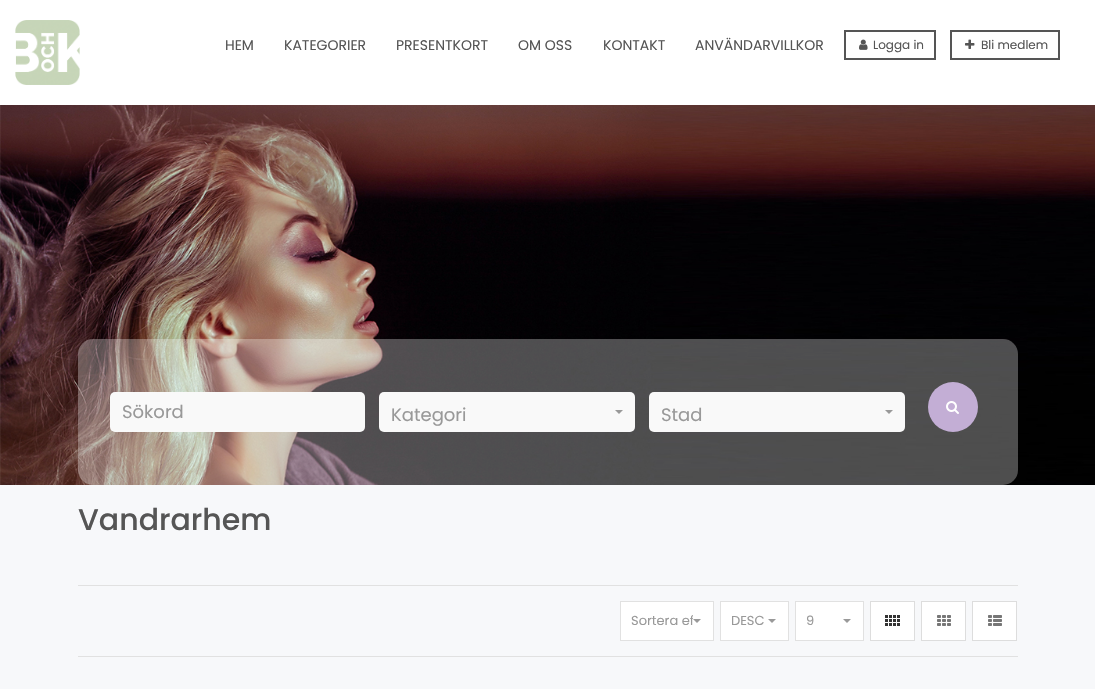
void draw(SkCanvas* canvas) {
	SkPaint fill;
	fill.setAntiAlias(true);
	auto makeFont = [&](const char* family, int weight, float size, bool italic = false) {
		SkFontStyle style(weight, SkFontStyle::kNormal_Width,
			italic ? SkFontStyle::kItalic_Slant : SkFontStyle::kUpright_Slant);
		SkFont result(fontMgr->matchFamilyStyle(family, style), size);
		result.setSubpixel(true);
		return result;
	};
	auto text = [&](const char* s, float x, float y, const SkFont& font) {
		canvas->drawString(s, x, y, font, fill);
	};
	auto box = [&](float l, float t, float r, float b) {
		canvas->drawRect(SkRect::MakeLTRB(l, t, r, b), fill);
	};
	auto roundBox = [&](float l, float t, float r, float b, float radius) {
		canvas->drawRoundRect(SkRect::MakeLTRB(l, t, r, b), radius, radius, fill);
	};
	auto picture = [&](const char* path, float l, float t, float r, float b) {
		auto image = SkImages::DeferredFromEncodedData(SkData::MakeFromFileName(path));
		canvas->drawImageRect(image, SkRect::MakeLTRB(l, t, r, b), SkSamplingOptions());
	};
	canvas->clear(0xFFF7F8FA);
	fill.setColor(0xFFFFFFFF);
	box(0, 0, 1095, 105);
	picture("image0.png", 15, 20, 80, 85);
	fill.setStyle(SkPaint::kStroke_Style);
	fill.setStrokeWidth(2);
	fill.setColor(0xFF555555);
	canvas->drawRect(SkRect::MakeLTRB(845, 31, 935, 59), fill);
	picture("image1.png", 859, 39, 868, 50);
	canvas->drawRect(SkRect::MakeLTRB(951, 31, 1059, 59), fill);
	picture("image2.png", 965, 39, 975, 49);
	picture("image3.png", 0, 105, 1095, 485);
	fill.setStyle(SkPaint::kFill_Style);
	fill.setColor(0x4DFFFFFF);
	roundBox(78, 339, 1018, 485, 15);
	fill.setColor(0xFFF9F9F9);
	roundBox(110, 392, 365, 432, 5);
	roundBox(379, 392, 635, 432, 5);
	fill.setColor(0xFF999999);
	canvas->drawPath(SkPathBuilder().moveTo(615, 410).lineTo(623, 410).lineTo(619, 414).close().detach(), fill);
	fill.setColor(0xFFF9F9F9);
	roundBox(649, 392, 905, 432, 5);
	fill.setColor(0xFF999999);
	canvas->drawPath(SkPathBuilder().moveTo(885, 410).lineTo(893, 410).lineTo(889, 414).close().detach(), fill);
	fill.setColor(0xFFC3AED5);
	canvas->drawCircle(953, 407, 25, fill);
	picture("image4.png", 946, 401, 959, 414);
	fill.setColor(0xFFE1E1E1);
	box(78, 585, 1018, 586);
	box(78, 656, 1018, 657);
	fill.setColor(0xFFFFFFFF);
	canvas->drawRect(SkRect::MakeLTRB(620.5f, 601.5f, 713.5f, 640.5f), fill);
	fill.setStyle(SkPaint::kStroke_Style);
	fill.setStrokeWidth(1);
	fill.setColor(0xFFE1E1E1);
	canvas->drawRect(SkRect::MakeLTRB(620.5f, 601.5f, 713.5f, 640.5f), fill);
	fill.setStyle(SkPaint::kFill_Style);
	fill.setColor(0xFF999999);
	canvas->drawPath(SkPathBuilder().moveTo(693, 619).lineTo(701, 619).lineTo(697, 623).close().detach(), fill);
	fill.setColor(0xFFFFFFFF);
	canvas->drawRect(SkRect::MakeLTRB(720.5f, 601.5f, 788.5f, 640.5f), fill);
	fill.setStyle(SkPaint::kStroke_Style);
	fill.setColor(0xFFE1E1E1);
	canvas->drawRect(SkRect::MakeLTRB(720.5f, 601.5f, 788.5f, 640.5f), fill);
	fill.setStyle(SkPaint::kFill_Style);
	fill.setColor(0xFF999999);
	canvas->drawPath(SkPathBuilder().moveTo(768, 619).lineTo(776, 619).lineTo(772, 623).close().detach(), fill);
	fill.setColor(0xFFFFFFFF);
	canvas->drawRect(SkRect::MakeLTRB(795.5f, 601.5f, 863.5f, 640.5f), fill);
	fill.setStyle(SkPaint::kStroke_Style);
	fill.setColor(0xFFE1E1E1);
	canvas->drawRect(SkRect::MakeLTRB(795.5f, 601.5f, 863.5f, 640.5f), fill);
	fill.setStyle(SkPaint::kFill_Style);
	fill.setColor(0xFF999999);
	canvas->drawPath(SkPathBuilder().moveTo(843, 619).lineTo(851, 619).lineTo(847, 623).close().detach(), fill);
	fill.setColor(0xFFFFFFFF);
	canvas->drawRect(SkRect::MakeLTRB(870.5f, 601.5f, 914.5f, 640.5f), fill);
	fill.setStyle(SkPaint::kStroke_Style);
	fill.setColor(0xFFDDDDDD);
	canvas->drawRect(SkRect::MakeLTRB(870.5f, 601.5f, 914.5f, 640.5f), fill);
	picture("image5.png", 885, 615, 900, 626);
	fill.setStyle(SkPaint::kFill_Style);
	fill.setColor(0xFFFFFFFF);
	canvas->drawRect(SkRect::MakeLTRB(921.5f, 601.5f, 965.5f, 640.5f), fill);
	fill.setStyle(SkPaint::kStroke_Style);
	fill.setColor(0xFFDDDDDD);
	canvas->drawRect(SkRect::MakeLTRB(921.5f, 601.5f, 965.5f, 640.5f), fill);
	picture("image6.png", 937, 615, 951, 626);
	fill.setStyle(SkPaint::kFill_Style);
	fill.setColor(0xFFFFFFFF);
	canvas->drawRect(SkRect::MakeLTRB(972.5f, 601.5f, 1016.5f, 640.5f), fill);
	fill.setStyle(SkPaint::kStroke_Style);
	fill.setColor(0xFFDDDDDD);
	canvas->drawRect(SkRect::MakeLTRB(972.5f, 601.5f, 1016.5f, 640.5f), fill);
	picture("image7.png", 988, 615, 1002, 626);
	auto font1 = makeFont("Poppins", 400, 14);
	fill.setStyle(SkPaint::kFill_Style);
	fill.setColor(0xFF555555);
	text("HEM", 225, 50, font1);
	text("KATEGORIER", 284, 50, font1);
	text("PRESENTKORT", 396, 50, font1);
	text("OM OSS", 518, 50, font1);
	text("KONTAKT", 603, 50, font1);
	text("ANVÄNDARVILLKOR", 695, 50, font1);
	auto font2 = makeFont("Poppins", 400, 12);
	text("Logga in", 873, 49, font2);
	text("Bli medlem", 981, 49, font2);
	auto font3 = makeFont("Poppins", 400, 18);
	fill.setColor(0xFF999999);
	text("Sökord", 122, 418, font3);
	text("Kategori", 391, 421, font3);
	text("Stad", 661, 421, font3);
	auto font4 = makeFont("Poppins", 500, 30);
	fill.setColor(0xFF555555);
	text("Vandrarhem", 78, 530, font4);
	canvas->save();
	canvas->clipRect(SkRect::MakeLTRB(631, 612, 693, 630));
	auto font5 = makeFont("Poppins", 400, 13);
	fill.setColor(0xFF999999);
	text("Sortera ef", 631, 625, font5);
	canvas->restore();
	text("DESC", 731, 625, font5);
	text("9", 806, 625, font5);
}
